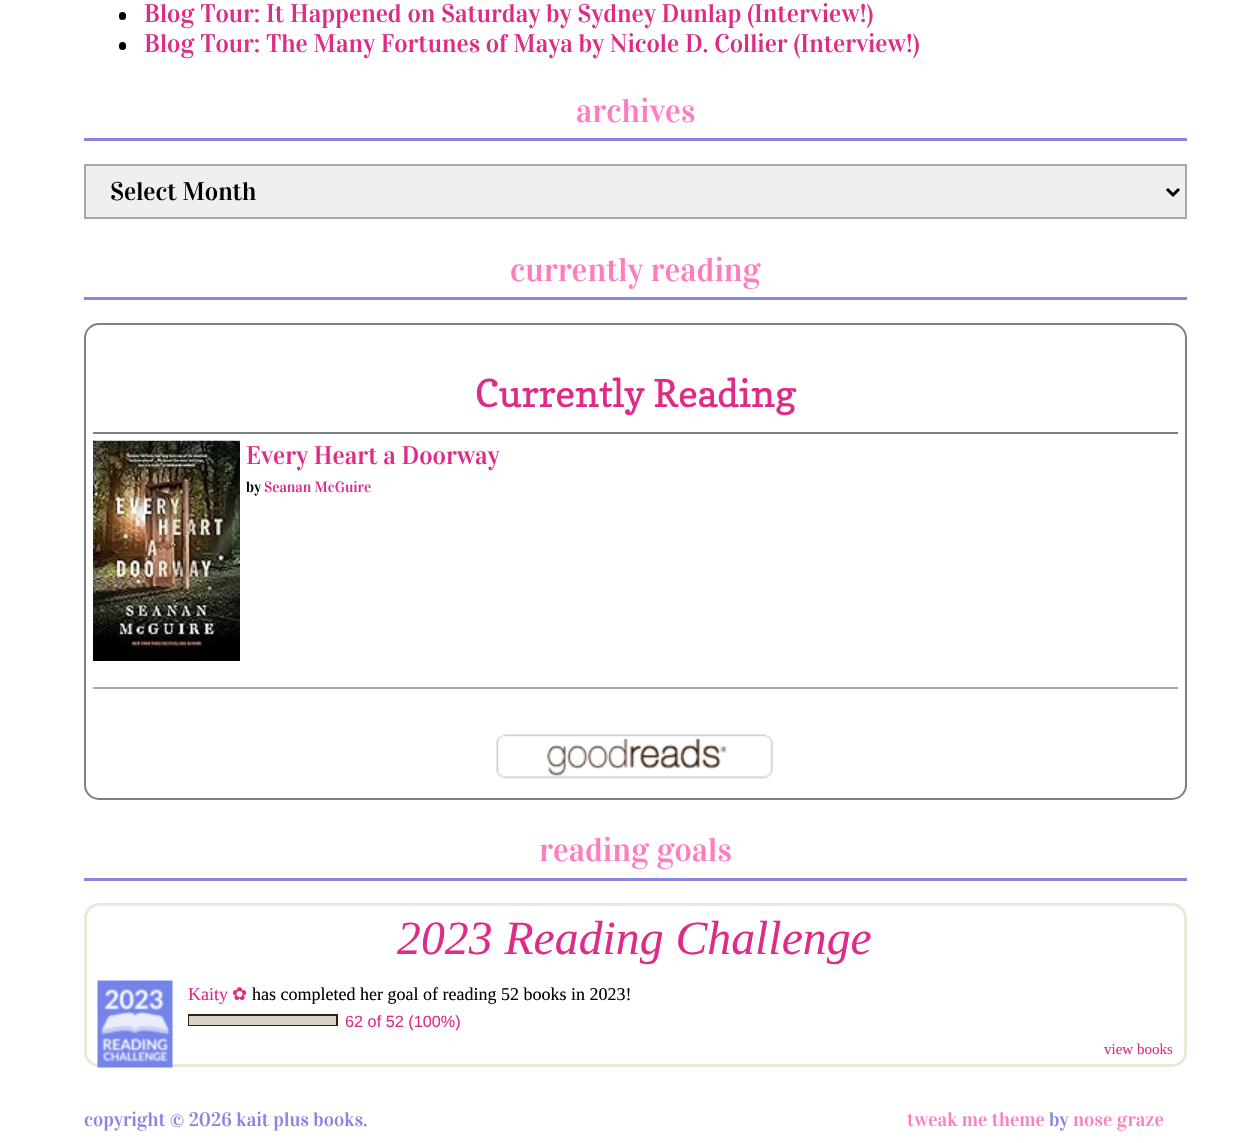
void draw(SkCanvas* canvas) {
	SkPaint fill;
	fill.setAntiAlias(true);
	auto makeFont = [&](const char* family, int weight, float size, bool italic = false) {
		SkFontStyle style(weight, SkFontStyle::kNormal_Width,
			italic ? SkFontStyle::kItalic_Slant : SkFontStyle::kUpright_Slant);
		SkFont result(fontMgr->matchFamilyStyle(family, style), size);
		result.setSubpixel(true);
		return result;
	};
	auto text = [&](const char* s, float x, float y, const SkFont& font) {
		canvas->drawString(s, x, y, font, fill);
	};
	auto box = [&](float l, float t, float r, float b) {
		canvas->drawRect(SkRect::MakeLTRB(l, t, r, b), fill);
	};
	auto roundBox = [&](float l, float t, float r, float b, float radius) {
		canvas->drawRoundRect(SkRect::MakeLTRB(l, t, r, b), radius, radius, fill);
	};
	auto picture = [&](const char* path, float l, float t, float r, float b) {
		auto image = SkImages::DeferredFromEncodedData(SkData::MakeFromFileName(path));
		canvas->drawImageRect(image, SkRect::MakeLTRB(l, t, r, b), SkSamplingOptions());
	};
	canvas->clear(0xFFFFFFFF);
	fill.setColor(0xFF000000);
	roundBox(119, 12, 126, 20, 3.5f);
	roundBox(119, 42, 126, 50, 3.5f);
	fill.setColor(0xFF8A84E2);
	box(84, 138, 1187, 141);
	fill.setColor(0xFFEFEFEF);
	canvas->drawRect(SkRect::MakeLTRB(85, 165, 1186, 218), fill);
	fill.setStyle(SkPaint::kStroke_Style);
	fill.setStrokeWidth(2);
	fill.setColor(0xFFA9A9A9);
	canvas->drawRect(SkRect::MakeLTRB(85, 165, 1186, 218), fill);
	fill.setStrokeWidth(3);
	fill.setColor(0xFF000000);
	canvas->drawPath(SkPathBuilder().moveTo(1167, 189).lineTo(1173, 195).lineTo(1179, 189).detach(), fill);
	fill.setStyle(SkPaint::kFill_Style);
	fill.setColor(0xFF8A84E2);
	box(84, 297, 1187, 300);
	fill.setStyle(SkPaint::kStroke_Style);
	fill.setStrokeWidth(2);
	fill.setColor(0xFF808080);
	canvas->drawRoundRect(SkRect::MakeLTRB(85, 324, 1186, 799), 14, 14, fill);
	fill.setStyle(SkPaint::kFill_Style);
	box(93, 432, 1178, 434);
	fill.setColor(0xFFAAAAAA);
	box(93, 687, 1178, 689);
	picture("image0.png", 93, 440, 240, 661);
	picture("image1.png", 496, 734, 773, 779);
	fill.setColor(0xFF8A84E2);
	box(84, 878, 1187, 881);
	fill.setStyle(SkPaint::kStroke_Style);
	fill.setStrokeWidth(3);
	fill.setColor(0xFFEBE8D5);
	canvas->drawRoundRect(SkRect::MakeLTRB(85.5f, 904.5f, 1185.5f, 1065.5f), 13.5f, 13.5f, fill);
	picture("image2.png", 97, 980, 173, 1068);
	fill.setStrokeWidth(2);
	fill.setColor(0xFF382110);
	canvas->drawRect(SkRect::MakeLTRB(189, 1015, 337, 1025), fill);
	fill.setStyle(SkPaint::kFill_Style);
	fill.setColor(0xFFD7D2C4);
	box(189, 1016, 336, 1025);
	auto font1 = makeFont("Vidaloka", 400, 25.5f);
	fill.setColor(0xFFDE2B88);
	text("Blog Tour: It Happened on Saturday by Sydney Dunlap (Interview!)", 144, 22, font1);
	text("Blog Tour: The Many Fortunes of Maya by Nicole D. Collier (Interview!)", 144, 52, font1);
	auto font2 = makeFont("Vidaloka", 400, 33);
	fill.setColor(0xFFFF7CBF);
	text("archives", 576, 122, font2);
	fill.setColor(0xFF000000);
	text("Select Month", 110, 200, font1);
	fill.setColor(0xFFFF7CBF);
	text("currently reading", 510, 281, font2);
	auto font3 = makeFont("Copse", 400, 38.25f);
	fill.setColor(0xFFDE2B88);
	text("Currently Reading", 475, 407, font3);
	text("Every Heart a Doorway", 246, 464, font1);
	auto font4 = makeFont("Vidaloka", 400, 15);
	fill.setColor(0xFF000000);
	text("by", 246, 492, font4);
	fill.setColor(0xFFDE2B88);
	text("Seanan McGuire", 264, 492, font4);
	fill.setColor(0xFFFF7CBF);
	text("reading goals", 539, 861, font2);
	auto font5 = makeFont("Liberation Serif", 400, 47.75f, true);
	fill.setColor(0xFFDE2B88);
	text("2023 Reading Challenge", 397, 954, font5);
	auto font6 = makeFont("Liberation Serif", 400, 18);
	text("Kaity", 188, 1000, font6);
	auto font7 = makeFont("DejaVu Sans", 400, 18);
	text("✿", 232, 1000, font7);
	fill.setColor(0xFF000000);
	text("has completed her goal of reading 52 books in 2023!", 252, 1000, font6);
	auto font8 = makeFont("Liberation Sans", 400, 16.25f);
	fill.setColor(0xFFDE2B88);
	text("62 of 52 (100%)", 345, 1027, font8);
	auto font9 = makeFont("Liberation Serif", 400, 15);
	text("view books", 1104, 1054, font9);
	auto font10 = makeFont("Vidaloka", 400, 19.5f);
	fill.setColor(0xFF8A84E2);
	text("copyright © 2026 kait plus books.", 84, 1126, font10);
	fill.setColor(0xFFFF7CBF);
	text("tweak me theme", 907, 1126, font10);
	fill.setColor(0xFF8A84E2);
	text("by", 1049, 1126, font10);
	fill.setColor(0xFFFF7CBF);
	text("nose graze", 1073, 1126, font10);
}
